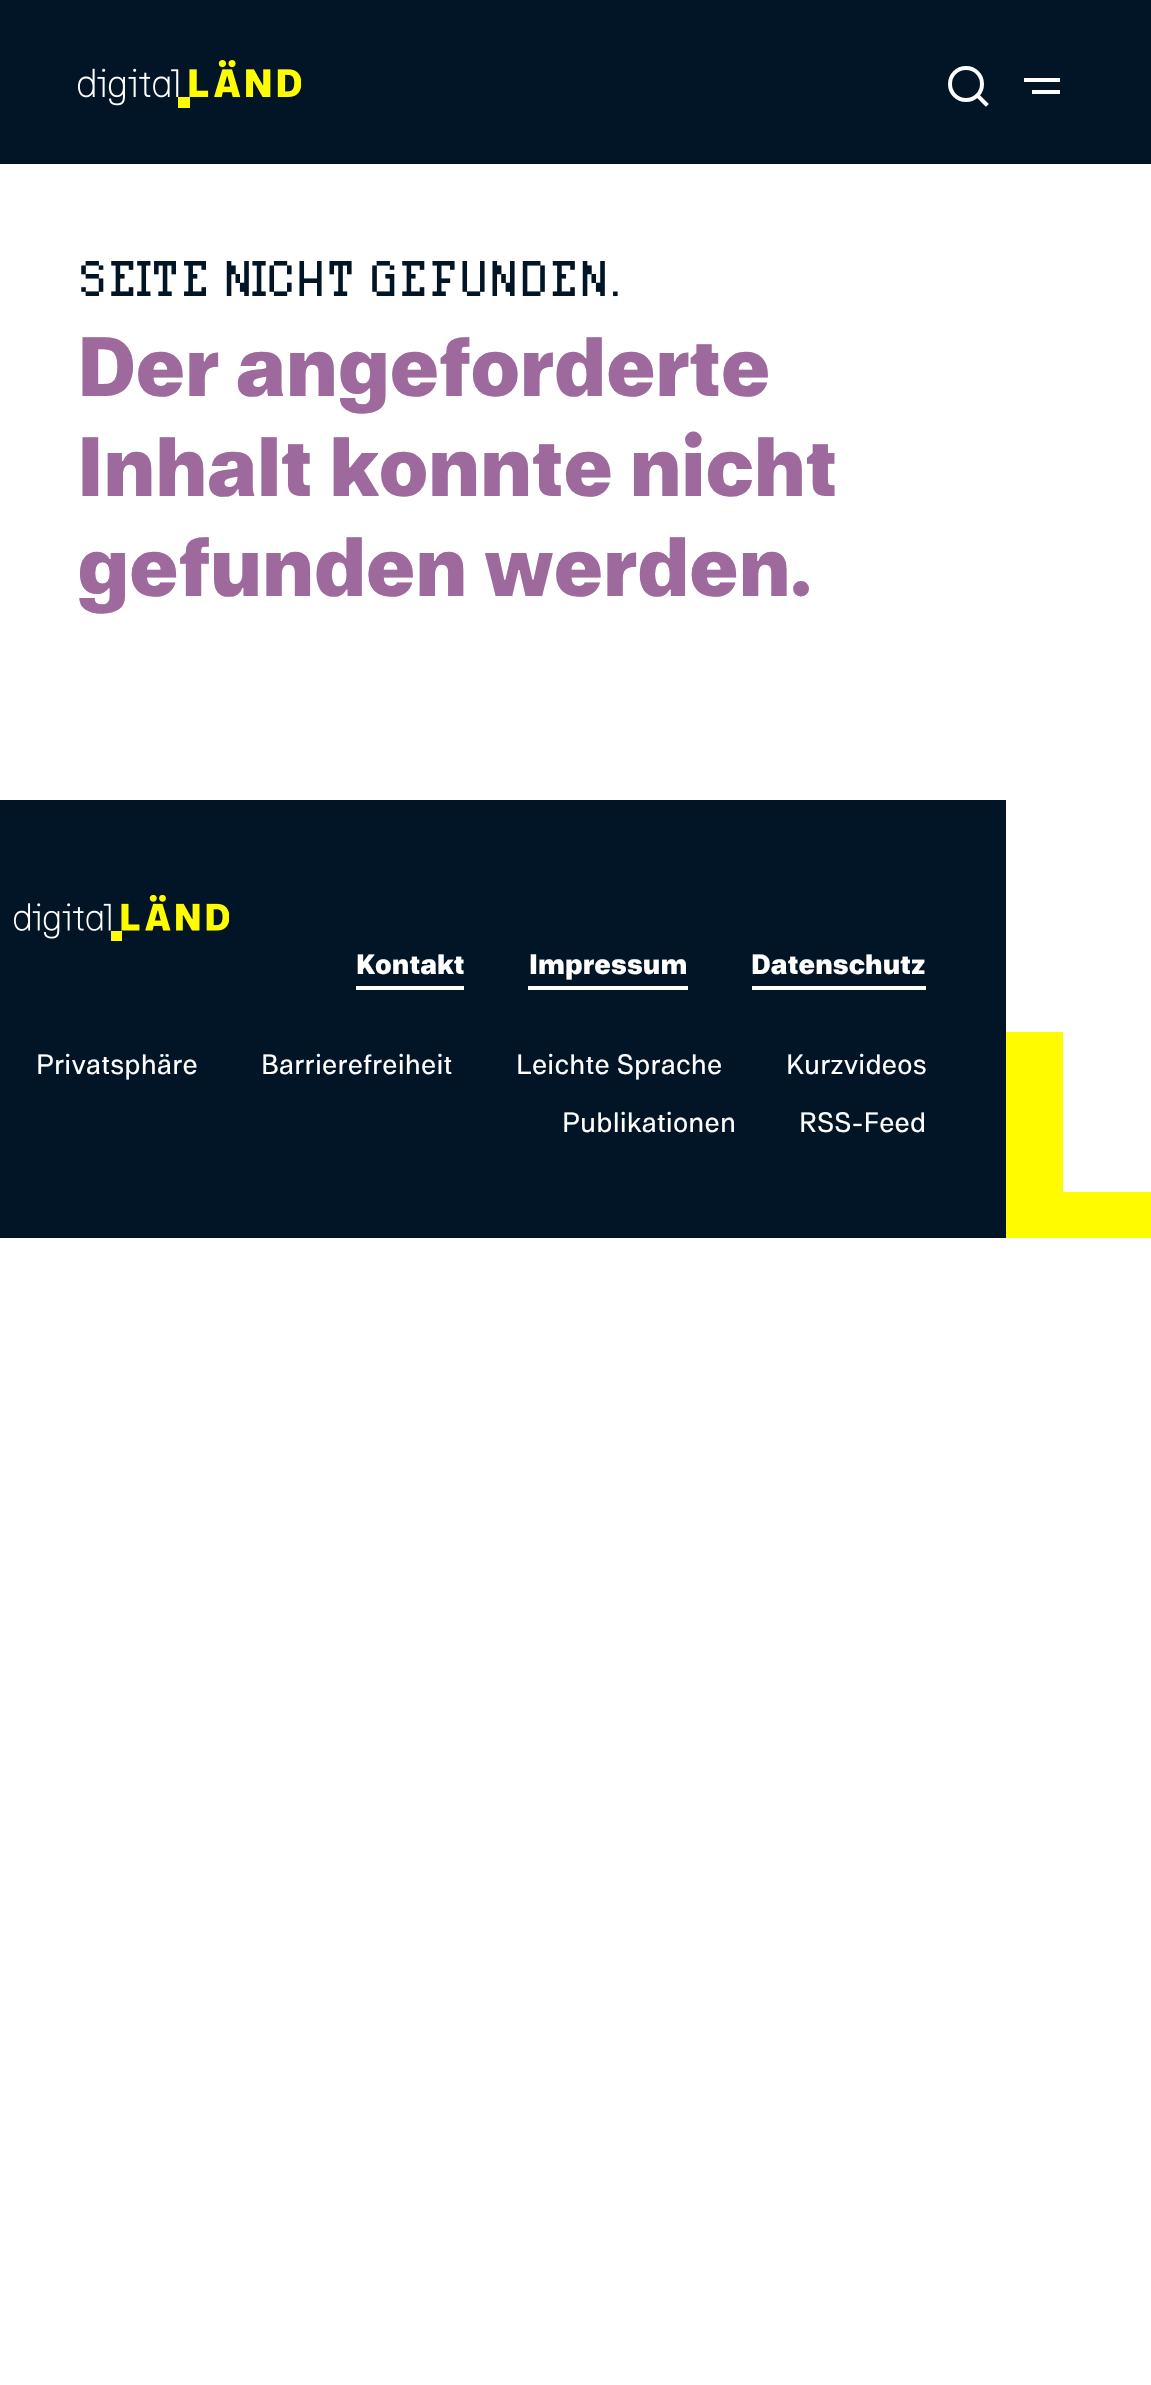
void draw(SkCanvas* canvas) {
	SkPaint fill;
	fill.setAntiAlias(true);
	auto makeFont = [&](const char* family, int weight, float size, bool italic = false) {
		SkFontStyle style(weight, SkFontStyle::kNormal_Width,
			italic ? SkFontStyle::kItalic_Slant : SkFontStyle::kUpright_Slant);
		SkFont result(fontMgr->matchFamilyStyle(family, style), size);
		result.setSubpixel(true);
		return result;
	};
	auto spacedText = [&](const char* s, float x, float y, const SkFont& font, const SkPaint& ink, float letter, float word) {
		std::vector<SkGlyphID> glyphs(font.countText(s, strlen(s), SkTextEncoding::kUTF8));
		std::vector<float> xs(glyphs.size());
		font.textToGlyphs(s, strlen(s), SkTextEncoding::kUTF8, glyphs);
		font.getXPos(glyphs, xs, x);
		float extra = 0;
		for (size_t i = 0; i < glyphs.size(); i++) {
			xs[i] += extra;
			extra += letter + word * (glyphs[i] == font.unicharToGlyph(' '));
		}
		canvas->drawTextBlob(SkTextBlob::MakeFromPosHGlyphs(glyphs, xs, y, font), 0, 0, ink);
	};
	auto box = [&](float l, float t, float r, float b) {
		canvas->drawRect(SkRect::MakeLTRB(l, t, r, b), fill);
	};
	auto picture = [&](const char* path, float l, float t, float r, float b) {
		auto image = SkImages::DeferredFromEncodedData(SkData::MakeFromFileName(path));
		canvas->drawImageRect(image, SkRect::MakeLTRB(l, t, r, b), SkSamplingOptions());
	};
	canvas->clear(0xFFFFFFFF);
	fill.setColor(0xFF021526);
	box(0, 0, 1151, 164);
	picture("image0.png", 78, 60, 301, 108);
	fill.setStyle(SkPaint::kStroke_Style);
	fill.setStrokeWidth(4);
	fill.setStrokeCap(SkPaint::kRound_Cap);
	fill.setStrokeJoin(SkPaint::kRound_Join);
	fill.setColor(0xFFFFFFFF);
	canvas->drawPath(SkPathBuilder().moveTo(966, 100).cubicTo(975, 100, 982, 93, 982, 84).cubicTo(982, 75, 975, 68, 966, 68).cubicTo(957, 68, 950, 75, 950, 84).cubicTo(950, 93, 957, 100, 966, 100).close().detach(), fill);
	fill.setStrokeCap(SkPaint::kSquare_Cap);
	canvas->drawPath(SkPathBuilder().moveTo(986, 104).lineTo(977.5f, 95.5f).detach(), fill);
	fill.setStyle(SkPaint::kFill_Style);
	box(1024, 78, 1060, 82);
	box(1032, 90, 1060, 94);
	fill.setColor(0xFF021526);
	box(0, 800, 1006, 1238);
	picture("image1.png", 14, 895, 229, 941);
	fill.setColor(0xFFFFFFFF);
	box(356, 986, 464, 990);
	box(528, 986, 688, 990);
	box(752, 986, 926, 990);
	canvas->save();
	canvas->clipRect(SkRect::MakeLTRB(1006, 1032, 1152, 1238));
	fill.setColor(0xFFFFFC00);
	canvas->drawPath(SkPathBuilder().moveTo(1006, 1032).lineTo(1006, 1239).lineTo(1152, 1239).lineTo(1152, 1192).lineTo(1063, 1192).lineTo(1063, 1032).close().detach(), fill);
	canvas->restore();
	auto font1 = makeFont("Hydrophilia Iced", 400, 48);
	fill.setColor(0xFF021526);
	spacedText("SEITE NICHT GEFUNDEN.", 77, 296, font1, fill, -0.5f, 0);
	auto font2 = makeFont("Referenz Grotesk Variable", 800, 84);
	fill.setColor(0xFF9E6A9E);
	spacedText("Der angeforderte", 77, 396, font2, fill, -0.6f, 0);
	spacedText("Inhalt konnte nicht", 77, 496, font2, fill, -0.6f, 0);
	spacedText("gefunden werden.", 77, 596, font2, fill, -0.6f, 0);
	auto font3 = makeFont("Referenz Grotesk Variable", 800, 28);
	fill.setColor(0xFFFFFFFF);
	spacedText("Kontakt", 356, 974, font3, fill, 0.1f, 0);
	spacedText("Impressum", 529, 974, font3, fill, 0.1f, 0);
	spacedText("Datenschutz", 751, 974, font3, fill, 0.1f, 0);
	auto font4 = makeFont("Referenz Grotesk Variable", 400, 28);
	spacedText("Privatsphäre", 36, 1074, font4, fill, 0.2f, 0);
	spacedText("Barrierefreiheit", 261, 1074, font4, fill, 0.2f, 0);
	spacedText("Leichte Sprache", 516, 1074, font4, fill, 0.2f, 0);
	spacedText("Kurzvideos", 786, 1074, font4, fill, 0.2f, 0);
	spacedText("Publikationen", 562, 1132, font4, fill, 0.2f, 0);
	spacedText("RSS-Feed", 799, 1132, font4, fill, 0.2f, 0);
}
